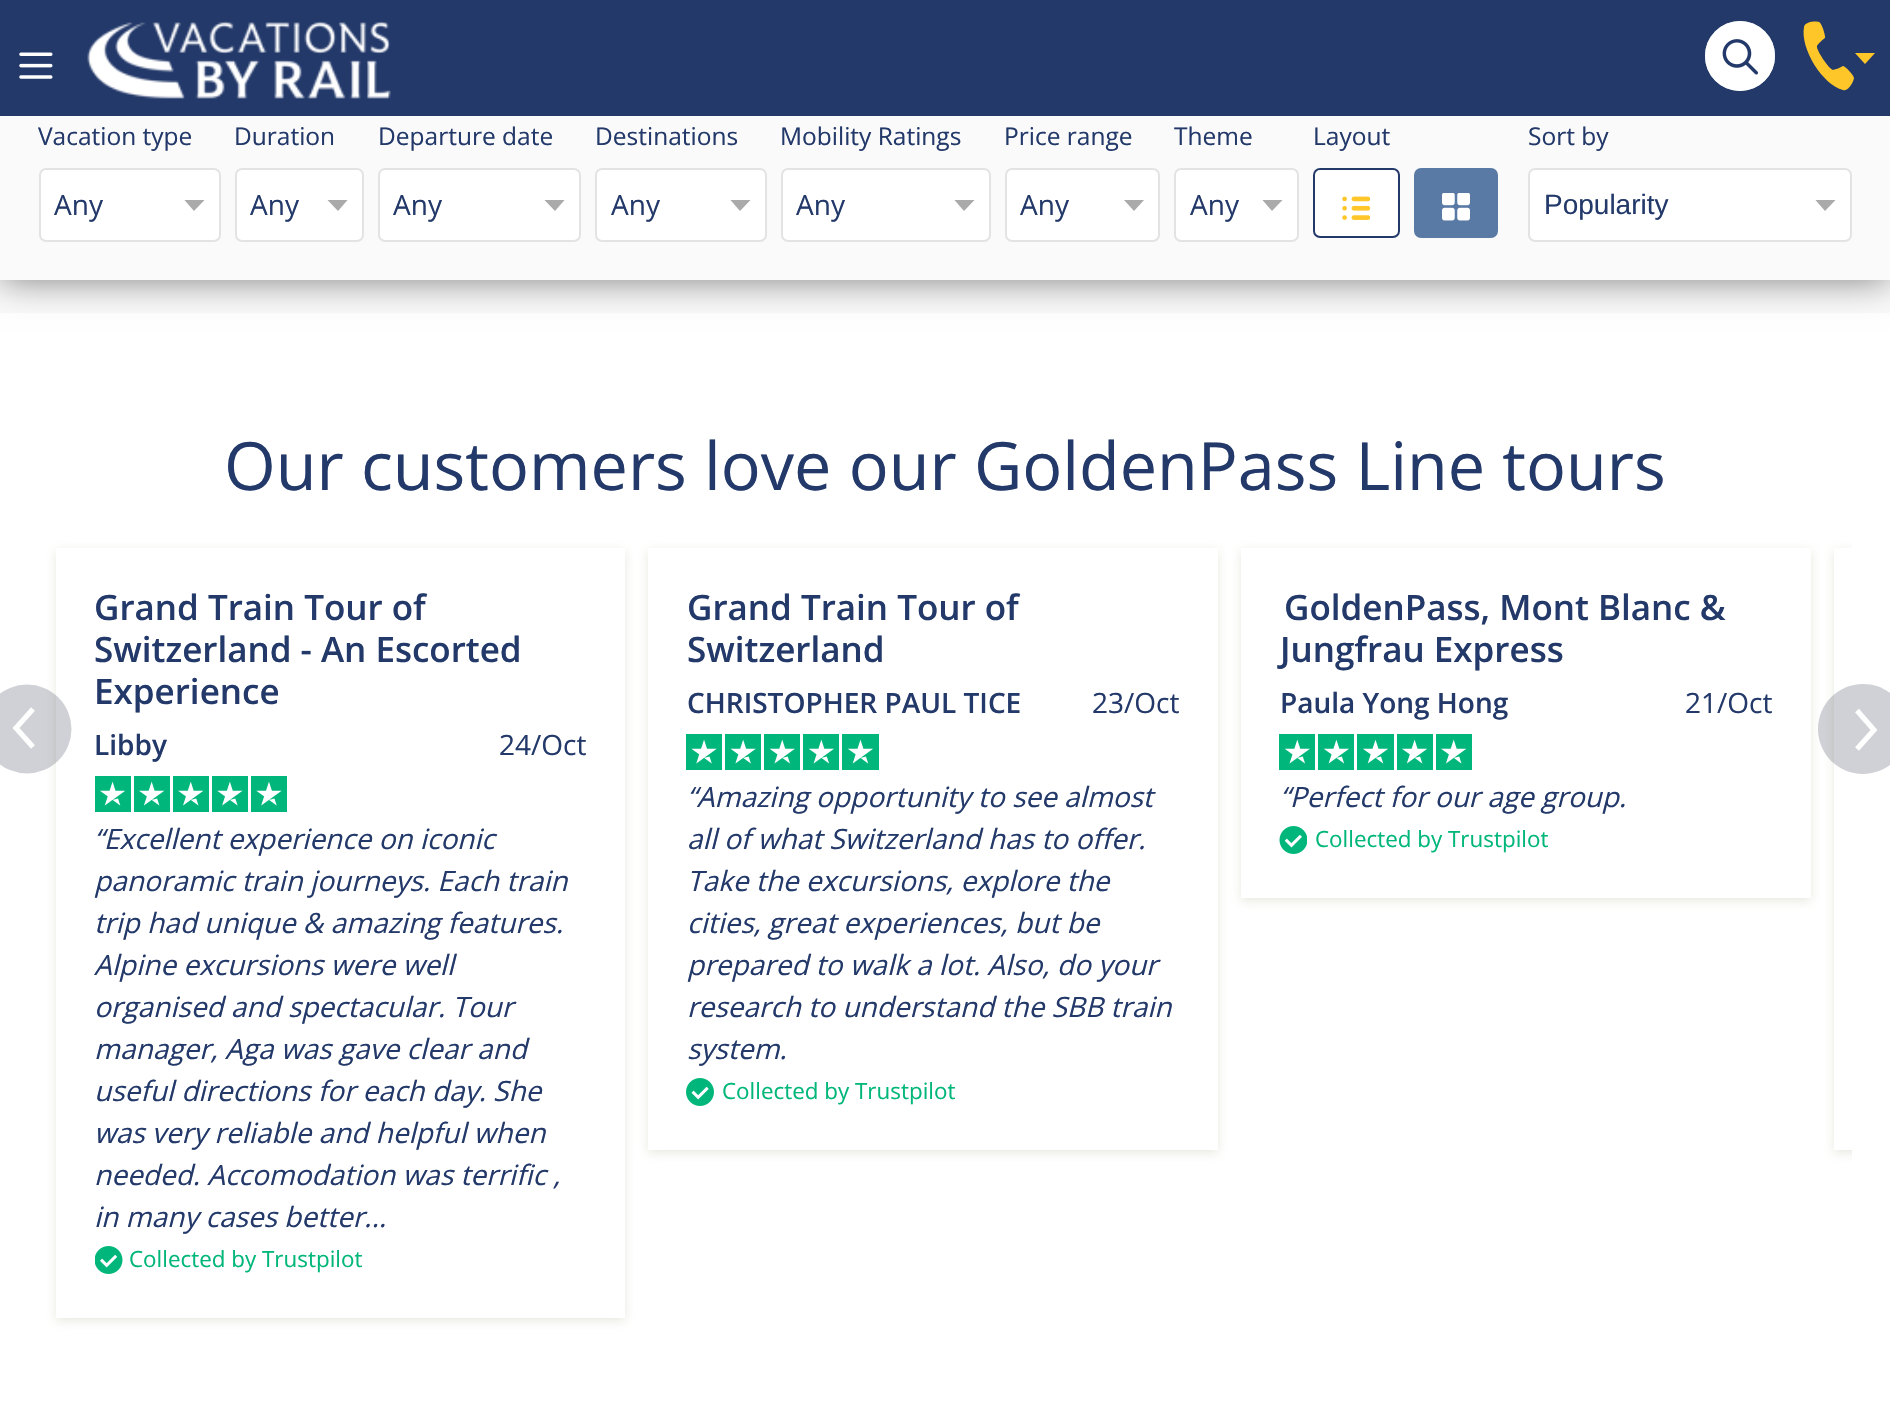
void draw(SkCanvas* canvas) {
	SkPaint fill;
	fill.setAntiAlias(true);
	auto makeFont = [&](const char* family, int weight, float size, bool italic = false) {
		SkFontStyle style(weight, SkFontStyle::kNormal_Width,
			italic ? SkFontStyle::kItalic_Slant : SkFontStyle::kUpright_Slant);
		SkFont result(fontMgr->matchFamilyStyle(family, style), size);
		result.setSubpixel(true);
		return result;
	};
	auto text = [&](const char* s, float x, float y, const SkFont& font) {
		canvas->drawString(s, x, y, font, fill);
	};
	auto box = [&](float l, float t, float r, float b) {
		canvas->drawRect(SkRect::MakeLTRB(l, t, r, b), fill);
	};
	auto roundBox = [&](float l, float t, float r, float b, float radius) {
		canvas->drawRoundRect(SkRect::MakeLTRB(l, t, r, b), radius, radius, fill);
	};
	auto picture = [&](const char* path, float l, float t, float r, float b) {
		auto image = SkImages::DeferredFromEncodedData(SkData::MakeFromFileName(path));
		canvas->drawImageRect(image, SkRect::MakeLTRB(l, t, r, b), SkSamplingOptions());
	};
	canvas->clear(0xFFFFFFFF);
	fill.setColor(0xFFFAFAFA);
	box(0, 280, 1890, 313);
	fill.setColor(0x80000000);
	fill.setMaskFilter(SkMaskFilter::MakeBlur(kNormal_SkBlurStyle, 17.5f));
	canvas->drawRect(SkRect::MakeLTRB(0, 116, 1890, 280), fill);
	fill.setMaskFilter(nullptr);
	fill.setColor(0xFF23396A);
	box(0, 0, 1890, 116);
	picture("image0.png", 19, 52, 53, 79);
	picture("image1.png", 87, 21, 391, 99);
	fill.setStyle(SkPaint::kStroke_Style);
	fill.setStrokeWidth(2);
	fill.setColor(0xFFE3E3E3);
	canvas->drawCircle(1740, 56, 34, fill);
	fill.setStyle(SkPaint::kFill_Style);
	fill.setColor(0xFFFFFFFF);
	canvas->drawCircle(1740, 56, 35, fill);
	picture("image2.png", 1722, 39, 1758, 75);
	fill.setColor(0xFFFFC629);
	canvas->drawPath(SkPathBuilder(SkPathFillType::kEvenOdd).moveTo(1854, 78).cubicTo(1854, 75, 1844, 65, 1843, 66).cubicTo(1840, 68, 1836, 69, 1833, 70).cubicTo(1829, 69, 1816, 50, 1817, 46).cubicTo(1818, 44, 1823, 39, 1825, 38).cubicTo(1826, 37, 1822, 23, 1819, 22).cubicTo(1817, 21, 1805, 21, 1804, 27).cubicTo(1800, 49, 1823, 85, 1843, 90).cubicTo(1849, 92, 1854, 80, 1854, 78).close().detach(), fill);
	canvas->save();
	canvas->clipRect(SkRect::MakeLTRB(1855, 53, 1876, 65));
	canvas->drawPath(SkPathBuilder(SkPathFillType::kEvenOdd).moveTo(1865, 64).lineTo(1875.5f, 52.5f).lineTo(1854.5f, 52.5f).close().detach(), fill);
	canvas->restore();
	fill.setColor(0xFFFAFAFA);
	box(0, 116, 1890, 280);
	fill.setColor(0xFFFFFFFF);
	roundBox(39, 168, 221, 242, 7);
	canvas->save();
	canvas->clipRect(SkRect::MakeLTRB(184, 200, 205, 212));
	fill.setColor(0xFFABAAAA);
	canvas->drawPath(SkPathBuilder(SkPathFillType::kEvenOdd).moveTo(194, 211).lineTo(205, 199.5f).lineTo(184, 199.5f).close().detach(), fill);
	canvas->restore();
	fill.setStyle(SkPaint::kStroke_Style);
	fill.setColor(0xFFE3E3E3);
	canvas->drawRoundRect(SkRect::MakeLTRB(40, 169, 220, 241), 6, 6, fill);
	fill.setStyle(SkPaint::kFill_Style);
	fill.setColor(0xFFFFFFFF);
	roundBox(235, 168, 364, 242, 7);
	canvas->save();
	canvas->clipRect(SkRect::MakeLTRB(327, 200, 348, 212));
	fill.setColor(0xFFABAAAA);
	canvas->drawPath(SkPathBuilder(SkPathFillType::kEvenOdd).moveTo(338, 211).lineTo(348, 199.5f).lineTo(327, 199.5f).close().detach(), fill);
	canvas->restore();
	fill.setStyle(SkPaint::kStroke_Style);
	fill.setColor(0xFFE3E3E3);
	canvas->drawRoundRect(SkRect::MakeLTRB(236, 169, 363, 241), 6, 6, fill);
	fill.setStyle(SkPaint::kFill_Style);
	fill.setColor(0xFFFFFFFF);
	roundBox(378, 168, 581, 242, 7);
	canvas->save();
	canvas->clipRect(SkRect::MakeLTRB(544, 200, 565, 212));
	fill.setColor(0xFFABAAAA);
	canvas->drawPath(SkPathBuilder(SkPathFillType::kEvenOdd).moveTo(555, 211).lineTo(565, 199.5f).lineTo(544, 199.5f).close().detach(), fill);
	canvas->restore();
	fill.setStyle(SkPaint::kStroke_Style);
	fill.setColor(0xFFE3E3E3);
	canvas->drawRoundRect(SkRect::MakeLTRB(379, 169, 580, 241), 6, 6, fill);
	fill.setStyle(SkPaint::kFill_Style);
	fill.setColor(0xFFFFFFFF);
	roundBox(595, 168, 767, 242, 7);
	canvas->save();
	canvas->clipRect(SkRect::MakeLTRB(730, 200, 751, 212));
	fill.setColor(0xFFABAAAA);
	canvas->drawPath(SkPathBuilder(SkPathFillType::kEvenOdd).moveTo(740, 211).lineTo(751, 199.5f).lineTo(730, 199.5f).close().detach(), fill);
	canvas->restore();
	fill.setStyle(SkPaint::kStroke_Style);
	fill.setColor(0xFFE3E3E3);
	canvas->drawRoundRect(SkRect::MakeLTRB(596, 169, 766, 241), 6, 6, fill);
	fill.setStyle(SkPaint::kFill_Style);
	fill.setColor(0xFFFFFFFF);
	roundBox(781, 168, 991, 242, 7);
	canvas->save();
	canvas->clipRect(SkRect::MakeLTRB(954, 200, 975, 212));
	fill.setColor(0xFFABAAAA);
	canvas->drawPath(SkPathBuilder(SkPathFillType::kEvenOdd).moveTo(964, 211).lineTo(975, 199.5f).lineTo(954, 199.5f).close().detach(), fill);
	canvas->restore();
	fill.setStyle(SkPaint::kStroke_Style);
	fill.setColor(0xFFE3E3E3);
	canvas->drawRoundRect(SkRect::MakeLTRB(782, 169, 990, 241), 6, 6, fill);
	fill.setStyle(SkPaint::kFill_Style);
	fill.setColor(0xFFFFFFFF);
	roundBox(1005, 168, 1160, 242, 7);
	canvas->save();
	canvas->clipRect(SkRect::MakeLTRB(1124, 200, 1145, 212));
	fill.setColor(0xFFABAAAA);
	canvas->drawPath(SkPathBuilder(SkPathFillType::kEvenOdd).moveTo(1134, 211).lineTo(1144.5f, 199.5f).lineTo(1123.5f, 199.5f).close().detach(), fill);
	canvas->restore();
	fill.setStyle(SkPaint::kStroke_Style);
	fill.setColor(0xFFE3E3E3);
	canvas->drawRoundRect(SkRect::MakeLTRB(1006, 169, 1159, 241), 6, 6, fill);
	fill.setStyle(SkPaint::kFill_Style);
	fill.setColor(0xFFFFFFFF);
	roundBox(1174, 168, 1299, 242, 7);
	canvas->save();
	canvas->clipRect(SkRect::MakeLTRB(1262, 200, 1283, 212));
	fill.setColor(0xFFABAAAA);
	canvas->drawPath(SkPathBuilder(SkPathFillType::kEvenOdd).moveTo(1272, 211).lineTo(1283, 199.5f).lineTo(1262, 199.5f).close().detach(), fill);
	canvas->restore();
	fill.setStyle(SkPaint::kStroke_Style);
	fill.setColor(0xFFE3E3E3);
	canvas->drawRoundRect(SkRect::MakeLTRB(1175, 169, 1298, 241), 6, 6, fill);
	fill.setStyle(SkPaint::kFill_Style);
	fill.setColor(0xFFFFFFFF);
	canvas->drawRoundRect(SkRect::MakeLTRB(1314, 169, 1399, 237), 6, 6, fill);
	fill.setStyle(SkPaint::kStroke_Style);
	fill.setColor(0xFF23396A);
	canvas->drawRoundRect(SkRect::MakeLTRB(1314, 169, 1399, 237), 6, 6, fill);
	picture("image3.png", 1342, 196, 1370, 220);
	fill.setStyle(SkPaint::kFill_Style);
	fill.setColor(0xFF587AA5);
	roundBox(1414, 168, 1498, 238, 7);
	picture("image4.png", 1442, 193, 1470, 221);
	fill.setColor(0xFFFFFFFF);
	roundBox(1528, 168, 1852, 242, 7);
	canvas->save();
	canvas->clipRect(SkRect::MakeLTRB(1815, 200, 1836, 212));
	fill.setColor(0xFFABAAAA);
	canvas->drawPath(SkPathBuilder(SkPathFillType::kEvenOdd).moveTo(1825, 211).lineTo(1836, 199.5f).lineTo(1815, 199.5f).close().detach(), fill);
	canvas->restore();
	fill.setStyle(SkPaint::kStroke_Style);
	fill.setColor(0xFFE3E3E3);
	canvas->drawRoundRect(SkRect::MakeLTRB(1529, 169, 1851, 241), 6, 6, fill);
	canvas->save();
	canvas->clipPath(SkPathBuilder(SkPathFillType::kEvenOdd).moveTo(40, 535).lineTo(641, 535).lineTo(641, 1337).lineTo(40, 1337).close().moveTo(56, 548).lineTo(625, 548).lineTo(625, 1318).lineTo(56, 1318).close().detach(), true);
	fill.setStyle(SkPaint::kFill_Style);
	fill.setColor(0x3B9B9B79);
	fill.setMaskFilter(SkMaskFilter::MakeBlur(kNormal_SkBlurStyle, 5));
	canvas->drawRect(SkRect::MakeLTRB(56, 551, 625, 1321), fill);
	fill.setMaskFilter(nullptr);
	canvas->restore();
	fill.setColor(0x4043485C);
	canvas->drawCircle(27, 729, 44.5f, fill);
	fill.setStyle(SkPaint::kStroke_Style);
	fill.setStrokeWidth(5.2f);
	fill.setColor(0xFFFFFFFF);
	canvas->drawPath(SkPathBuilder().moveTo(33, 709).lineTo(16, 728).lineTo(33, 747).detach(), fill);
	picture("image5.png", 95, 776, 287, 812);
	picture("image6.png", 95, 1246, 123, 1274);
	canvas->save();
	canvas->clipPath(SkPathBuilder(SkPathFillType::kEvenOdd).moveTo(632, 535).lineTo(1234, 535).lineTo(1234, 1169).lineTo(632, 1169).close().moveTo(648, 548).lineTo(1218, 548).lineTo(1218, 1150).lineTo(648, 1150).close().detach(), true);
	fill.setStyle(SkPaint::kFill_Style);
	fill.setColor(0x3B9B9B79);
	fill.setMaskFilter(SkMaskFilter::MakeBlur(kNormal_SkBlurStyle, 5));
	canvas->drawRect(SkRect::MakeLTRB(648, 551, 1218, 1153), fill);
	fill.setMaskFilter(nullptr);
	canvas->restore();
	picture("image7.png", 686, 734, 879, 770);
	picture("image8.png", 686, 1078, 714, 1106);
	canvas->save();
	canvas->clipPath(SkPathBuilder(SkPathFillType::kEvenOdd).moveTo(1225, 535).lineTo(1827, 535).lineTo(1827, 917).lineTo(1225, 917).close().moveTo(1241, 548).lineTo(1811, 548).lineTo(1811, 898).lineTo(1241, 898).close().detach(), true);
	fill.setMaskFilter(SkMaskFilter::MakeBlur(kNormal_SkBlurStyle, 5));
	canvas->drawRect(SkRect::MakeLTRB(1241, 551, 1811, 901), fill);
	fill.setMaskFilter(nullptr);
	canvas->restore();
	picture("image9.png", 1279, 734, 1472, 770);
	picture("image10.png", 1279, 826, 1307, 854);
	canvas->save();
	canvas->clipRect(SkRect::MakeLTRB(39, 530, 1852, 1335));
	canvas->clipPath(SkPathBuilder(SkPathFillType::kEvenOdd).moveTo(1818, 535).lineTo(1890, 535).lineTo(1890, 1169).lineTo(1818, 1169).close().moveTo(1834, 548).lineTo(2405, 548).lineTo(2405, 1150).lineTo(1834, 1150).close().detach(), true);
	fill.setMaskFilter(SkMaskFilter::MakeBlur(kNormal_SkBlurStyle, 5));
	canvas->drawRect(SkRect::MakeLTRB(1834, 551, 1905, 1153), fill);
	fill.setMaskFilter(nullptr);
	canvas->restore();
	fill.setColor(0x4043485C);
	canvas->drawPath(SkPathBuilder(SkPathFillType::kEvenOdd).moveTo(1863, 774).cubicTo(1838, 774, 1818, 754, 1818, 729).cubicTo(1818, 704, 1838, 684, 1863, 684).cubicTo(1888, 684, 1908, 704, 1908, 729).cubicTo(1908, 754, 1888, 774, 1863, 774).close().detach(), fill);
	fill.setStyle(SkPaint::kStroke_Style);
	fill.setColor(0xFFFFFFFF);
	canvas->drawPath(SkPathBuilder().moveTo(1857, 749).lineTo(1874, 730).lineTo(1857, 710.5f).detach(), fill);
	auto font1 = makeFont("Open Sans", 400, 24.5f);
	fill.setStyle(SkPaint::kFill_Style);
	fill.setColor(0xFF23396A);
	text("Vacation type", 38, 145, font1);
	auto font2 = makeFont("Open Sans", 400, 28);
	text("Any", 54, 215, font2);
	text("Duration", 234, 145, font1);
	text("Any", 250, 215, font2);
	text("Departure date", 378, 145, font1);
	text("Any", 393, 215, font2);
	text("Destinations", 595, 145, font1);
	text("Any", 611, 215, font2);
	text("Mobility Ratings", 780, 145, font1);
	text("Any", 796, 215, font2);
	text("Price range", 1004, 145, font1);
	text("Any", 1020, 215, font2);
	text("Theme", 1174, 145, font1);
	text("Any", 1190, 215, font2);
	text("Layout", 1313, 145, font1);
	text("Sort by", 1528, 145, font1);
	auto font3 = makeFont("Liberation Sans", 400, 28);
	text("Popularity", 1544, 214, font3);
	auto font4 = makeFont("Open Sans", 400, 66.5f);
	text("Our customers love our GoldenPass Line tours", 224, 490, font4);
	auto font5 = makeFont("Open Sans", 600, 35);
	text("Grand Train Tour of", 94, 620, font5);
	text("Switzerland - An Escorted", 94, 662, font5);
	text("Experience", 94, 704, font5);
	auto font6 = makeFont("Open Sans", 600, 28);
	text("Libby", 94, 755, font6);
	text("24/Oct", 499, 755, font2);
	auto font7 = makeFont("Open Sans", 400, 28, true);
	text("“Excellent experience on iconic", 94, 849, font7);
	text("panoramic train journeys. Each train", 94, 891, font7);
	text("trip had unique & amazing features.", 94, 933, font7);
	text("Alpine excursions were well", 94, 975, font7);
	text("organised and spectacular. Tour", 94, 1017, font7);
	text("manager, Aga was gave clear and", 94, 1059, font7);
	text("useful directions for each day. She", 94, 1101, font7);
	text("was very reliable and helpful when", 94, 1143, font7);
	text("needed. Accomodation was terrific ,", 94, 1185, font7);
	text("in many cases better...", 94, 1227, font7);
	auto font8 = makeFont("Open Sans", 400, 22.4f);
	fill.setColor(0xFF00B67A);
	text("Collected by Trustpilot", 129, 1267, font8);
	fill.setColor(0xFF23396A);
	text("Grand Train Tour of", 687, 620, font5);
	text("Switzerland", 687, 662, font5);
	text("CHRISTOPHER PAUL TICE", 687, 713, font6);
	text("23/Oct", 1092, 713, font2);
	text("“Amazing opportunity to see almost", 687, 807, font7);
	text("all of what Switzerland has to offer.", 687, 849, font7);
	text("Take the excursions, explore the", 687, 891, font7);
	text("cities, great experiences, but be", 687, 933, font7);
	text("prepared to walk a lot. Also, do your", 687, 975, font7);
	text("research to understand the SBB train", 687, 1017, font7);
	text("system.", 687, 1059, font7);
	fill.setColor(0xFF00B67A);
	text("Collected by Trustpilot", 722, 1099, font8);
	fill.setColor(0xFF23396A);
	text("GoldenPass, Mont Blanc &", 1284, 620, font5);
	text("Jungfrau Express", 1280, 662, font5);
	text("Paula Yong Hong", 1280, 713, font6);
	text("21/Oct", 1685, 713, font2);
	text("“Perfect for our age group.", 1280, 807, font7);
	fill.setColor(0xFF00B67A);
	text("Collected by Trustpilot", 1315, 847, font8);
}
